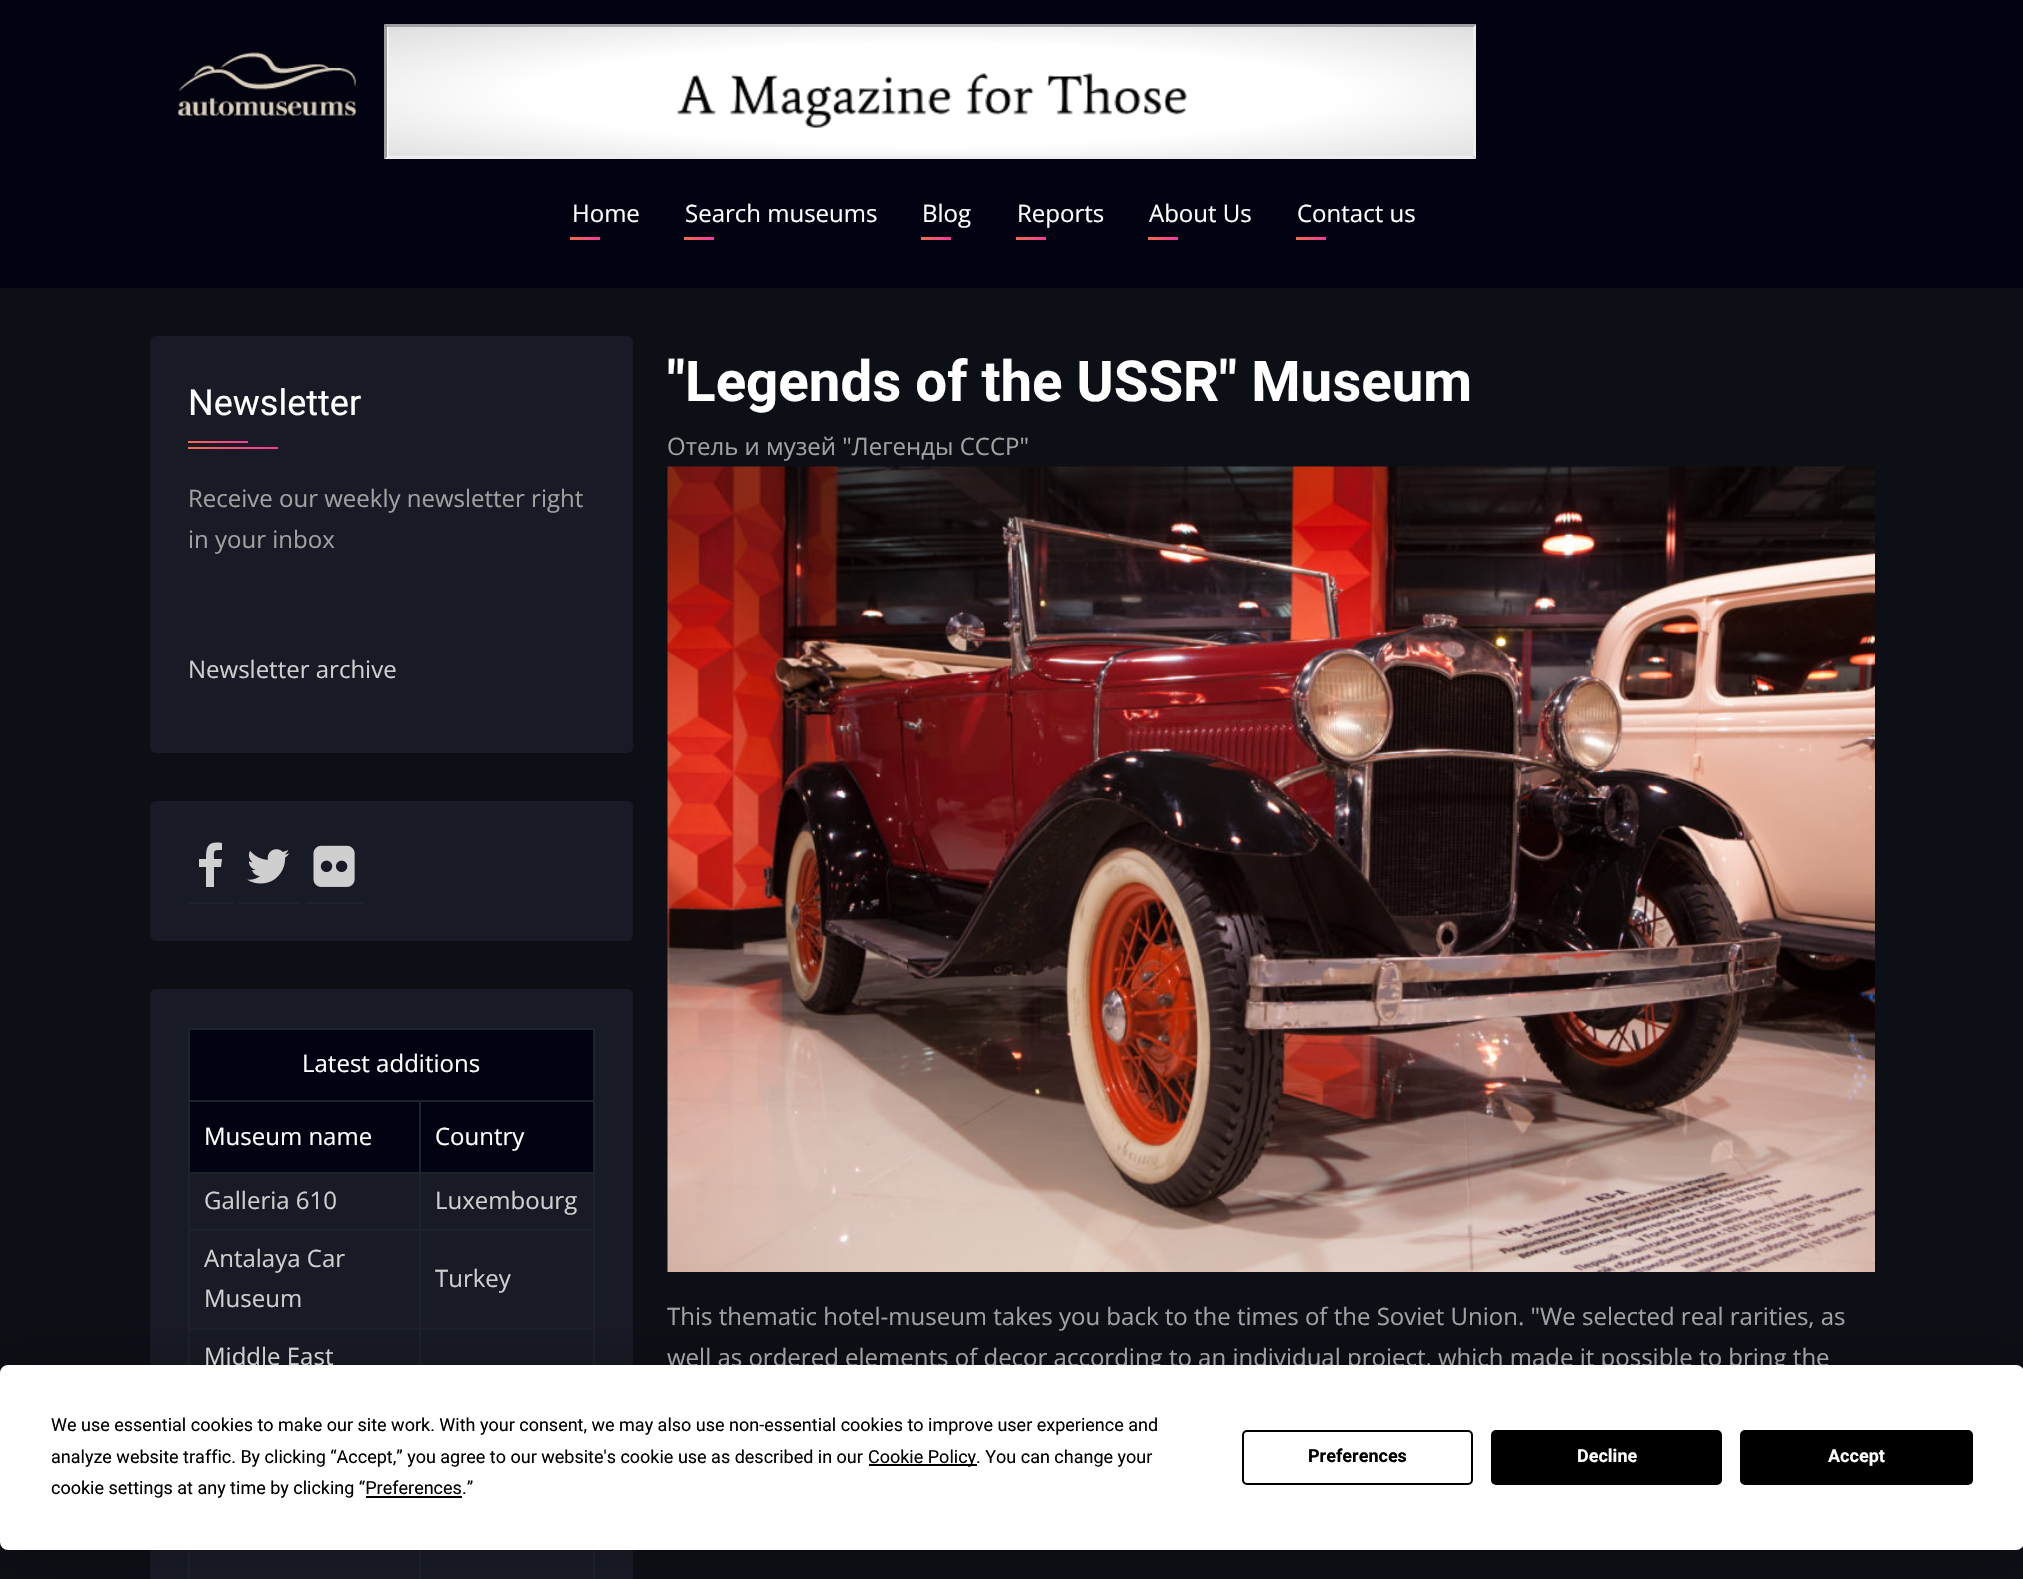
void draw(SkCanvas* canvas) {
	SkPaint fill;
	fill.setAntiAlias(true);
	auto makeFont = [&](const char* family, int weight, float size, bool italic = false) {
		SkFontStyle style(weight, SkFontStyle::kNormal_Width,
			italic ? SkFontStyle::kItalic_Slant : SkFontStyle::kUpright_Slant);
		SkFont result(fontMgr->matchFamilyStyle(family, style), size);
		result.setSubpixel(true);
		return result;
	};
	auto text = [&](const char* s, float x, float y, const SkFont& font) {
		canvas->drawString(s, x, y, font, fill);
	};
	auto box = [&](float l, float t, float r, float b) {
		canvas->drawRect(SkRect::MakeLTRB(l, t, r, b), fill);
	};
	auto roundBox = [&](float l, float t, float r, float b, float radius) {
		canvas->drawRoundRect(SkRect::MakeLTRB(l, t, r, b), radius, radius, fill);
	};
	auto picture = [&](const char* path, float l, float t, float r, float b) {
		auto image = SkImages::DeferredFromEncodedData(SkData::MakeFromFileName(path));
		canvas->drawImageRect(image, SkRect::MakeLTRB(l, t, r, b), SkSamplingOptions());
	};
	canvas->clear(0xFF0D0F16);
	fill.setColor(0xFF020312);
	box(0, 0, 2023, 288);
	fill.setColor(0xFF9F9F9F);
	canvas->drawPath(SkPathBuilder().moveTo(384, 24).lineTo(1476, 24).lineTo(1473, 27).lineTo(387, 27).close().detach(), fill);
	picture("image0.png", 177, 51, 357, 118);
	fill.setColor(0xFFEEEEEE);
	canvas->drawPath(SkPathBuilder().moveTo(1476, 24).lineTo(1476, 159).lineTo(1473, 156).lineTo(1473, 27).close().detach(), fill);
	canvas->drawPath(SkPathBuilder().moveTo(1476, 159).lineTo(384, 159).lineTo(387, 156).lineTo(1473, 156).close().detach(), fill);
	fill.setColor(0xFF9F9F9F);
	canvas->drawPath(SkPathBuilder().moveTo(384, 159).lineTo(384, 24).lineTo(387, 27).lineTo(387, 156).close().detach(), fill);
	picture("image1.png", 387, 27, 1473, 156);
	{
		const SkColor colors[] = {0xFFF26C4F, 0xFFF4399E};
		const float stops[] = {0, 1};
		const SkPoint ends[] = {{570, 239}, {600, 239}};
		fill.setShader(SkGradientShader::MakeLinear(ends, colors, stops, 2, SkTileMode::kClamp));
		fill.setAlpha(255);
	}
	box(570, 237, 600, 240);
	{
		const SkColor colors[] = {0xFFF26C4F, 0xFFF4399E};
		const float stops[] = {0, 1};
		const SkPoint ends[] = {{684, 239}, {714, 239}};
		fill.setShader(SkGradientShader::MakeLinear(ends, colors, stops, 2, SkTileMode::kClamp));
		fill.setAlpha(255);
	}
	box(684, 237, 714, 240);
	{
		const SkColor colors[] = {0xFFF26C4F, 0xFFF4399E};
		const float stops[] = {0, 1};
		const SkPoint ends[] = {{921, 239}, {951, 239}};
		fill.setShader(SkGradientShader::MakeLinear(ends, colors, stops, 2, SkTileMode::kClamp));
		fill.setAlpha(255);
	}
	box(921, 237, 951, 240);
	{
		const SkColor colors[] = {0xFFF26C4F, 0xFFF4399E};
		const float stops[] = {0, 1};
		const SkPoint ends[] = {{1016, 239}, {1046, 239}};
		fill.setShader(SkGradientShader::MakeLinear(ends, colors, stops, 2, SkTileMode::kClamp));
		fill.setAlpha(255);
	}
	box(1016, 237, 1046, 240);
	{
		const SkColor colors[] = {0xFFF26C4F, 0xFFF4399E};
		const float stops[] = {0, 1};
		const SkPoint ends[] = {{1148, 239}, {1178, 239}};
		fill.setShader(SkGradientShader::MakeLinear(ends, colors, stops, 2, SkTileMode::kClamp));
		fill.setAlpha(255);
	}
	box(1148, 237, 1178, 240);
	{
		const SkColor colors[] = {0xFFF26C4F, 0xFFF4399E};
		const float stops[] = {0, 1};
		const SkPoint ends[] = {{1296, 239}, {1326, 239}};
		fill.setShader(SkGradientShader::MakeLinear(ends, colors, stops, 2, SkTileMode::kClamp));
		fill.setAlpha(255);
	}
	box(1296, 237, 1326, 240);
	fill.setShader(nullptr);
	fill.setColor(0xFF181A25);
	roundBox(150, 336, 633, 753, 6);
	{
		const SkColor colors[] = {0xFFF26C4F, 0xFFF4399E};
		const float stops[] = {0, 1};
		const SkPoint ends[] = {{188, 442}, {248, 442}};
		fill.setShader(SkGradientShader::MakeLinear(ends, colors, stops, 2, SkTileMode::kClamp));
		fill.setAlpha(255);
	}
	box(188, 441, 248, 443);
	{
		const SkColor colors[] = {0xFFF26C4F, 0xFFF4399E};
		const float stops[] = {0, 1};
		const SkPoint ends[] = {{188, 448}, {278, 448}};
		fill.setShader(SkGradientShader::MakeLinear(ends, colors, stops, 2, SkTileMode::kClamp));
		fill.setAlpha(255);
	}
	box(188, 447, 278, 449);
	fill.setShader(nullptr);
	fill.setColor(0xFF181A25);
	roundBox(150, 801, 633, 941, 6);
	fill.setColor(0xFF1E222A);
	box(188, 902, 233, 904);
	fill.setColor(0xFFCFCFCF);
	canvas->drawPath(SkPathBuilder().moveTo(222, 843).lineTo(222, 850).cubicTo(213, 850, 214, 850, 214, 859).lineTo(222, 859).lineTo(221, 867).lineTo(214, 867).lineTo(214, 887).lineTo(206, 887).lineTo(206, 867).lineTo(199, 867).lineTo(199, 859).lineTo(206, 859).cubicTo(206, 846, 208, 841, 222, 843).close().detach(), fill);
	fill.setColor(0xFF1E222A);
	box(239, 902, 300, 904);
	picture("image2.png", 247, 849, 290, 884);
	box(306, 902, 363, 904);
	picture("image3.png", 313, 845, 355, 887);
	fill.setColor(0xFF181A25);
	roundBox(150, 989, 633, 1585, 6);
	fill.setColor(0xFF020312);
	box(190, 1030, 593, 1100);
	fill.setColor(0xFF1E222A);
	box(188, 1028, 594, 1030);
	box(419, 1100, 594, 1102);
	box(419, 1172, 594, 1174);
	box(419, 1229, 594, 1231);
	box(419, 1328, 594, 1330);
	box(593, 1328, 595, 1365);
	box(593, 1229, 595, 1329);
	box(593, 1172, 595, 1230);
	box(593, 1100, 595, 1173);
	box(593, 1028, 595, 1101);
	box(419, 1328, 421, 1365);
	box(188, 1328, 420, 1330);
	box(419, 1229, 421, 1329);
	box(188, 1229, 420, 1231);
	box(419, 1172, 421, 1230);
	box(188, 1172, 420, 1174);
	box(419, 1100, 421, 1173);
	box(188, 1100, 420, 1102);
	box(188, 1328, 190, 1365);
	box(188, 1229, 190, 1329);
	box(188, 1172, 190, 1230);
	box(188, 1100, 190, 1173);
	box(188, 1028, 190, 1101);
	fill.setColor(0xFF020312);
	box(190, 1102, 419, 1172);
	box(421, 1102, 593, 1172);
	fill.setColor(0xFF1E222A);
	box(188, 1550, 190, 1579);
	box(593, 1550, 595, 1579);
	box(419, 1550, 421, 1579);
	picture("image4.png", 667, 466, 1875, 1272);
	fill.setColor(0x40000000);
	fill.setMaskFilter(SkMaskFilter::MakeBlur(kNormal_SkBlurStyle, 26));
	canvas->drawRoundRect(SkRect::MakeLTRB(0, 1365, 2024, 1550), 8, 8, fill);
	fill.setMaskFilter(nullptr);
	auto font1 = makeFont("Open Sans", 400, 24);
	fill.setColor(0xFFFFFFFF);
	text("Home", 572, 222, font1);
	text("Search museums", 685, 222, font1);
	text("Blog", 922, 222, font1);
	text("Reports", 1017, 222, font1);
	text("About Us", 1149, 222, font1);
	text("Contact us", 1297, 222, font1);
	auto font2 = makeFont("Roboto", 400, 36);
	text("Newsletter", 188, 415, font2);
	fill.setColor(0xFFA1A1A1);
	text("Receive our weekly newsletter right", 188, 507, font1);
	text("in your inbox", 188, 548, font1);
	fill.setColor(0xFFCFCFCF);
	text("Newsletter archive", 188, 678, font1);
	fill.setColor(0xFFFFFFFF);
	text("Latest additions", 302, 1072, font1);
	text("Museum name", 204, 1145, font1);
	text("Country", 435, 1145, font1);
	fill.setColor(0xFFCFCFCF);
	text("Galleria 610", 204, 1209, font1);
	text("Luxembourg", 435, 1209, font1);
	text("Antalaya Car", 204, 1267, font1);
	text("Museum", 204, 1307, font1);
	text("Turkey", 435, 1287, font1);
	text("Middle East", 204, 1365, font1);
	auto font3 = makeFont("Roboto", 700, 56.4f);
	fill.setColor(0xFFFFFFFF);
	text("\"Legends of the USSR\" Museum", 667, 401, font3);
	fill.setColor(0xFFA1A1A1);
	text("Отель и музей \"Легенды СССР\"", 667, 455, font1);
	text("This thematic hotel-museum takes you back to the times of the Soviet Union. \"We selected real rarities, as", 667, 1325, font1);
	text("well as ordered elements of decor according to an individual project, which made it possible to bring the", 667, 1366, font1);
	fill.setColor(0xFFFFFFFF);
	roundBox(0, 1365, 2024, 1550, 8);
	auto font4 = makeFont("Roboto", 400, 18);
	fill.setColor(0xFF000000);
	text("We use essential cookies to make our site work. With your consent, we may also use non-essential cookies to improve user experience and", 51, 1431, font4);
	text("analyze website traffic. By clicking “Accept,” you agree to our website's cookie use as described in our", 51, 1463, font4);
	box(869, 1464, 977, 1466);
	text("Cookie Policy. You can change your", 868, 1463, font4);
	text("cookie settings at any time by clicking “Preferences.”", 51, 1494, font4);
	box(366, 1496, 462, 1498);
	fill.setStyle(SkPaint::kStroke_Style);
	fill.setStrokeWidth(2);
	canvas->drawRoundRect(SkRect::MakeLTRB(1243, 1431, 1472, 1484), 4, 4, fill);
	auto font5 = makeFont("Roboto", 700, 18);
	fill.setStyle(SkPaint::kFill_Style);
	text("Preferences", 1308, 1462, font5);
	canvas->drawRoundRect(SkRect::MakeLTRB(1492, 1431, 1721, 1484), 4, 4, fill);
	fill.setStyle(SkPaint::kStroke_Style);
	canvas->drawRoundRect(SkRect::MakeLTRB(1492, 1431, 1721, 1484), 4, 4, fill);
	fill.setStyle(SkPaint::kFill_Style);
	fill.setColor(0xFFFFFFFF);
	text("Decline", 1577, 1462, font5);
	fill.setColor(0xFF000000);
	canvas->drawRoundRect(SkRect::MakeLTRB(1741, 1431, 1972, 1484), 4, 4, fill);
	fill.setStyle(SkPaint::kStroke_Style);
	canvas->drawRoundRect(SkRect::MakeLTRB(1741, 1431, 1972, 1484), 4, 4, fill);
	fill.setStyle(SkPaint::kFill_Style);
	fill.setColor(0xFFFFFFFF);
	text("Accept", 1828, 1462, font5);
}
